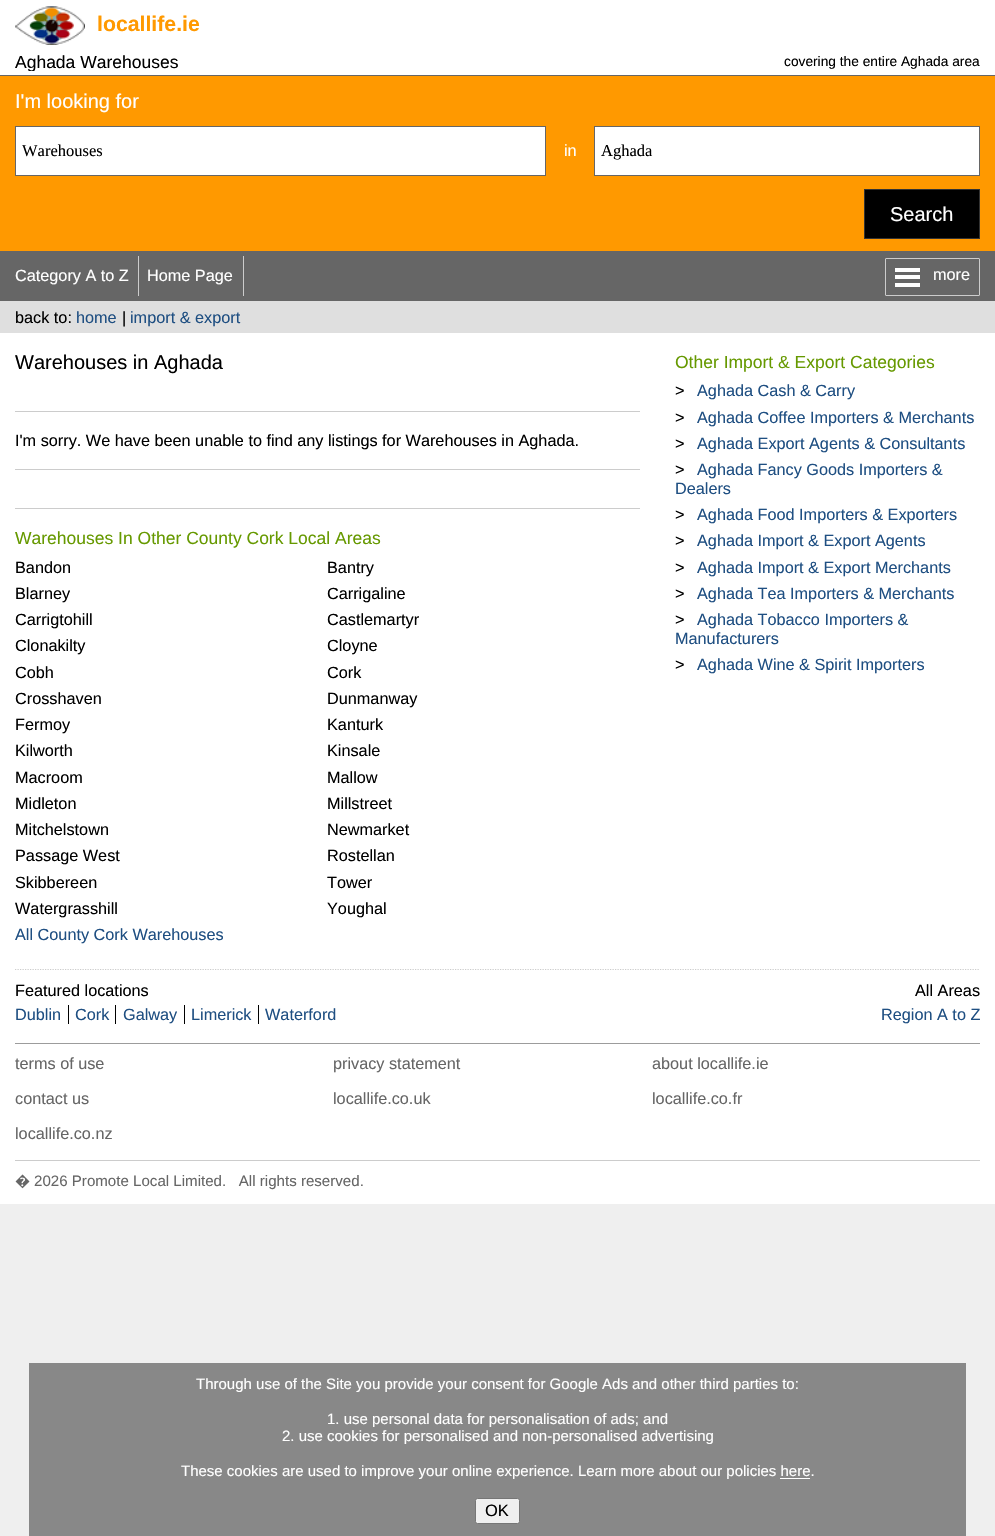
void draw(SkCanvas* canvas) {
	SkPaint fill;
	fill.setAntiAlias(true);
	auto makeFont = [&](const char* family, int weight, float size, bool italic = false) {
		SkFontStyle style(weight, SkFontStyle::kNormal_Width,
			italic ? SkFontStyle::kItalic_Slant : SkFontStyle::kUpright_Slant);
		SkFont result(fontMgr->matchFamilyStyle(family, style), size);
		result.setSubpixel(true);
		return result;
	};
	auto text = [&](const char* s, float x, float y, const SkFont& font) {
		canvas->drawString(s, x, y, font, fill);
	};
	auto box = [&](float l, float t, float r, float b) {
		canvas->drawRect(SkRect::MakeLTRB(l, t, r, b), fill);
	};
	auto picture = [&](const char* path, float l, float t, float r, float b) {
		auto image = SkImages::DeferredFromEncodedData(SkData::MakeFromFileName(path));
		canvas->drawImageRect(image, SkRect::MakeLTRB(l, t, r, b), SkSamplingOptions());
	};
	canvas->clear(0xFFEFEFEF);
	fill.setColor(0xFFFFFFFF);
	box(0, 0, 995, 1204);
	picture("image0.png", 15, 6, 85, 45);
	fill.setColor(0xFFFF9900);
	box(0, 76, 995, 251);
	fill.setColor(0xFF666666);
	box(0, 75, 995, 76);
	fill.setColor(0xFFFFFFFF);
	canvas->drawRect(SkRect::MakeLTRB(15.5f, 126.5f, 545.5f, 175.5f), fill);
	fill.setStyle(SkPaint::kStroke_Style);
	fill.setStrokeWidth(1);
	fill.setColor(0xFF666666);
	canvas->drawRect(SkRect::MakeLTRB(15.5f, 126.5f, 545.5f, 175.5f), fill);
	fill.setStyle(SkPaint::kFill_Style);
	fill.setColor(0xFFFFFFFF);
	canvas->drawRect(SkRect::MakeLTRB(594.5f, 126.5f, 979.5f, 175.5f), fill);
	fill.setStyle(SkPaint::kStroke_Style);
	fill.setColor(0xFF666666);
	canvas->drawRect(SkRect::MakeLTRB(594.5f, 126.5f, 979.5f, 175.5f), fill);
	fill.setStyle(SkPaint::kFill_Style);
	fill.setColor(0xFF000000);
	canvas->drawRect(SkRect::MakeLTRB(864.5f, 189.5f, 979.5f, 238.5f), fill);
	fill.setStyle(SkPaint::kStroke_Style);
	fill.setColor(0xFF333333);
	canvas->drawRect(SkRect::MakeLTRB(864.5f, 189.5f, 979.5f, 238.5f), fill);
	fill.setStyle(SkPaint::kFill_Style);
	fill.setColor(0xFF666666);
	box(0, 251, 995, 301);
	fill.setColor(0xFFCCCCCC);
	box(138, 256, 139, 296);
	box(243, 256, 244, 296);
	fill.setStyle(SkPaint::kStroke_Style);
	canvas->drawRoundRect(SkRect::MakeLTRB(885.5f, 258.5f, 979.5f, 295.5f), 0.5f, 0.5f, fill);
	fill.setStyle(SkPaint::kFill_Style);
	fill.setColor(0xFFFFFFFF);
	box(895, 268, 920, 272);
	box(895, 275, 920, 279);
	box(895, 283, 920, 287);
	fill.setColor(0xFFDFDFDF);
	box(0, 301, 995, 333);
	fill.setColor(0xFFCCCCCC);
	box(15, 411, 640, 412);
	box(15, 469, 640, 470);
	box(15, 508, 640, 509);
	fill.setStyle(SkPaint::kStroke_Style);
	fill.setStrokeWidth(1.2f);
	fill.setPathEffect(SkDashPathEffect::Make({{1.25f, 1.25f}}, 0));
	canvas->drawPath(SkPathBuilder().moveTo(15, 969.5f).lineTo(980, 969.5f).detach(), fill);
	fill.setPathEffect(nullptr);
	fill.setStyle(SkPaint::kFill_Style);
	fill.setColor(0xFF000000);
	box(68, 1005, 69, 1024);
	box(115, 1005, 116, 1024);
	box(184, 1005, 185, 1024);
	box(258, 1005, 259, 1024);
	fill.setColor(0xFF9C9C9C);
	box(15, 1043, 980, 1044);
	fill.setColor(0xFFCCCCCC);
	box(15, 1160, 980, 1161);
	fill.setColor(0xFF888888);
	box(29, 1363, 966, 1536);
	fill.setColor(0xFFFFFFFF);
	box(780, 1478, 810, 1479);
	fill.setColor(0xFFEFEFEF);
	canvas->drawRoundRect(SkRect::MakeLTRB(475.5f, 1498.5f, 519.5f, 1523.5f), 2, 2, fill);
	fill.setStyle(SkPaint::kStroke_Style);
	fill.setStrokeWidth(1);
	fill.setColor(0xFF767676);
	canvas->drawRoundRect(SkRect::MakeLTRB(475.5f, 1498.5f, 519.5f, 1523.5f), 2, 2, fill);
	auto font1 = makeFont("Liberation Sans", 700, 21.25f);
	fill.setStyle(SkPaint::kFill_Style);
	fill.setColor(0xFFFF9900);
	text("locallife.ie", 97, 31, font1);
	canvas->save();
	canvas->clipRect(SkRect::MakeLTRB(15, 51, 980, 71));
	auto font2 = makeFont("Liberation Sans", 400, 17.5f);
	fill.setColor(0xFF000000);
	text("Aghada Warehouses", 15, 68, font2);
	canvas->restore();
	auto font3 = makeFont("Liberation Sans", 400, 13.75f);
	text("covering the entire Aghada area", 784, 66, font3);
	auto font4 = makeFont("Liberation Sans", 400, 20);
	fill.setColor(0xFFFFFFFF);
	text("I'm looking for", 15, 108, font4);
	auto font5 = makeFont("Liberation Serif", 400, 16.5f);
	fill.setColor(0xFF000000);
	text("Warehouses", 22, 156, font5);
	auto font6 = makeFont("Liberation Sans", 400, 16.25f);
	fill.setColor(0xFFFFFFFF);
	text("in", 564, 156, font6);
	fill.setColor(0xFF000000);
	text("Aghada", 601, 156, font5);
	fill.setColor(0xFFFFFFFF);
	text("Search", 890, 221, font4);
	text("Category A to Z", 15, 281, font6);
	text("Home Page", 147, 281, font6);
	text("more", 933, 280, font6);
	fill.setColor(0xFF000000);
	text("back to:", 15, 323, font6);
	fill.setColor(0xFF1F4F82);
	text("home", 76, 323, font6);
	fill.setColor(0xFF000000);
	text("|", 122, 323, font6);
	fill.setColor(0xFF1F4F82);
	text("import & export", 130, 323, font6);
	fill.setColor(0xFF000000);
	text("Warehouses in Aghada", 15, 369, font4);
	text("I'm sorry. We have been unable to find any listings for Warehouses in Aghada.", 15, 446, font6);
	fill.setColor(0xFF669900);
	text("Warehouses In Other County Cork Local Areas", 15, 544, font2);
	fill.setColor(0xFF000000);
	text("Bandon", 15, 573, font6);
	text("Bantry", 327, 573, font6);
	text("Blarney", 15, 599, font6);
	text("Carrigaline", 327, 599, font6);
	text("Carrigtohill", 15, 625, font6);
	text("Castlemartyr", 327, 625, font6);
	text("Clonakilty", 15, 651, font6);
	text("Cloyne", 327, 651, font6);
	text("Cobh", 15, 678, font6);
	text("Cork", 327, 678, font6);
	text("Crosshaven", 15, 704, font6);
	text("Dunmanway", 327, 704, font6);
	text("Fermoy", 15, 730, font6);
	text("Kanturk", 327, 730, font6);
	text("Kilworth", 15, 756, font6);
	text("Kinsale", 327, 756, font6);
	text("Macroom", 15, 783, font6);
	text("Mallow", 327, 783, font6);
	text("Midleton", 15, 809, font6);
	text("Millstreet", 327, 809, font6);
	text("Mitchelstown", 15, 835, font6);
	text("Newmarket", 327, 835, font6);
	text("Passage West", 15, 861, font6);
	text("Rostellan", 327, 861, font6);
	text("Skibbereen", 15, 888, font6);
	text("Tower", 327, 888, font6);
	text("Watergrasshill", 15, 914, font6);
	text("Youghal", 327, 914, font6);
	fill.setColor(0xFF1F4F82);
	text("All County Cork Warehouses", 15, 940, font6);
	fill.setColor(0xFF669900);
	text("Other Import & Export Categories", 675, 368, font2);
	fill.setColor(0xFF000000);
	text(">", 675, 396, font6);
	fill.setColor(0xFF1F4F82);
	text("Aghada Cash & Carry", 697, 396, font6);
	fill.setColor(0xFF000000);
	text(">", 675, 423, font6);
	fill.setColor(0xFF1F4F82);
	text("Aghada Coffee Importers & Merchants", 697, 423, font6);
	fill.setColor(0xFF000000);
	text(">", 675, 449, font6);
	fill.setColor(0xFF1F4F82);
	text("Aghada Export Agents & Consultants", 697, 449, font6);
	fill.setColor(0xFF000000);
	text(">", 675, 475, font6);
	fill.setColor(0xFF1F4F82);
	text("Aghada Fancy Goods Importers &", 697, 475, font6);
	text("Dealers", 675, 494, font6);
	fill.setColor(0xFF000000);
	text(">", 675, 520, font6);
	fill.setColor(0xFF1F4F82);
	text("Aghada Food Importers & Exporters", 697, 520, font6);
	fill.setColor(0xFF000000);
	text(">", 675, 546, font6);
	fill.setColor(0xFF1F4F82);
	text("Aghada Import & Export Agents", 697, 546, font6);
	fill.setColor(0xFF000000);
	text(">", 675, 573, font6);
	fill.setColor(0xFF1F4F82);
	text("Aghada Import & Export Merchants", 697, 573, font6);
	fill.setColor(0xFF000000);
	text(">", 675, 599, font6);
	fill.setColor(0xFF1F4F82);
	text("Aghada Tea Importers & Merchants", 697, 599, font6);
	fill.setColor(0xFF000000);
	text(">", 675, 625, font6);
	fill.setColor(0xFF1F4F82);
	text("Aghada Tobacco Importers &", 697, 625, font6);
	text("Manufacturers", 675, 644, font6);
	fill.setColor(0xFF000000);
	text(">", 675, 670, font6);
	fill.setColor(0xFF1F4F82);
	text("Aghada Wine & Spirit Importers", 697, 670, font6);
	fill.setColor(0xFF000000);
	text("Featured locations", 15, 996, font6);
	fill.setColor(0xFF1F4F82);
	text("Dublin", 15, 1020, font6);
	text("Cork", 75, 1020, font6);
	text("Galway", 123, 1020, font6);
	text("Limerick", 191, 1020, font6);
	text("Waterford", 265, 1020, font6);
	fill.setColor(0xFF000000);
	text("All Areas", 915, 996, font6);
	fill.setColor(0xFF1F4F82);
	text("Region A to Z", 881, 1020, font6);
	fill.setColor(0xFF666666);
	text("terms of use", 15, 1069, font6);
	text("privacy statement", 333, 1069, font6);
	text("about locallife.ie", 652, 1069, font6);
	text("contact us", 15, 1104, font6);
	text("locallife.co.uk", 333, 1104, font6);
	text("locallife.co.fr", 652, 1104, font6);
	text("locallife.co.nz", 15, 1139, font6);
	auto font7 = makeFont("Noto Sans", 400, 15.1f);
	text("�", 15, 1186, font7);
	auto font8 = makeFont("Liberation Sans", 400, 15.1f);
	text("2026 Promote Local Limited.   All rights reserved.", 34, 1186, font8);
	auto font9 = makeFont("Liberation Sans", 400, 15);
	fill.setColor(0xFFFFFFFF);
	text("Through use of the Site you provide your consent for Google Ads and other third parties to:", 196, 1389, font9);
	text("1. use personal data for personalisation of ads; and", 327, 1424, font9);
	text("2. use cookies for personalised and non-personalised advertising", 282, 1441, font9);
	text("These cookies are used to improve your online experience. Learn more about our policies here.", 181, 1476, font9);
	auto font10 = makeFont("Liberation Sans", 400, 16.5f);
	fill.setColor(0xFF000000);
	text("OK", 485, 1516, font10);
}
